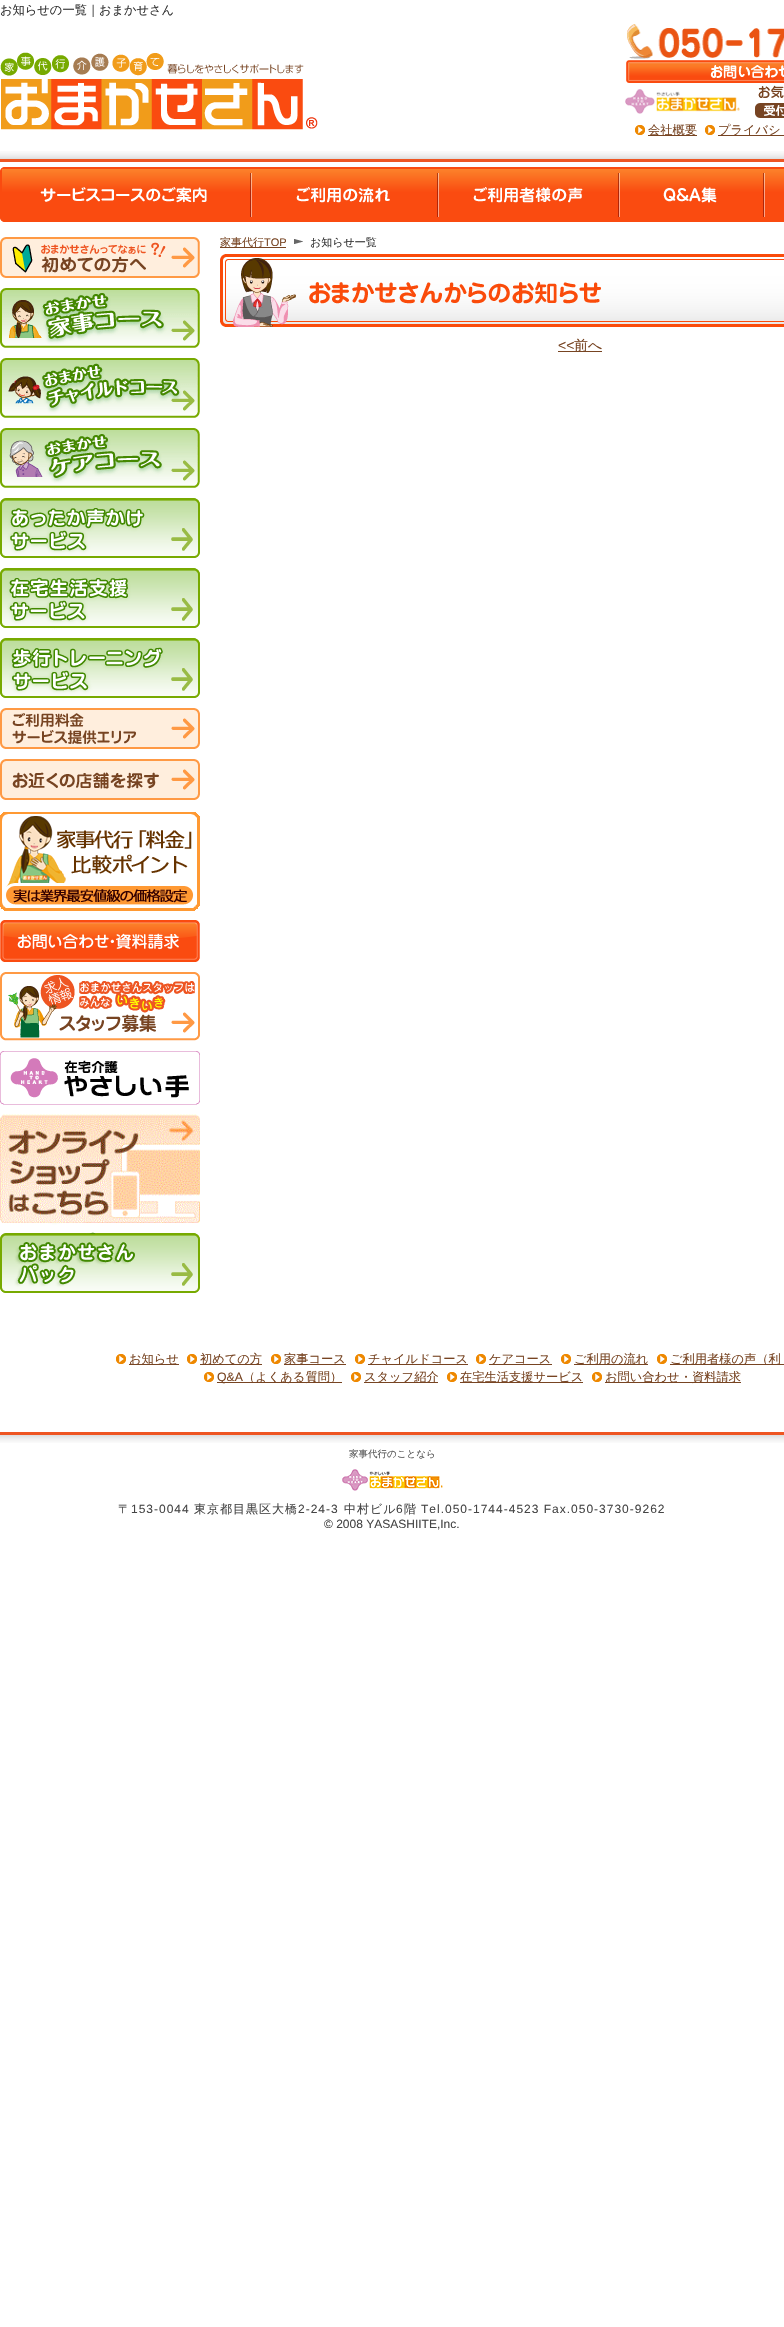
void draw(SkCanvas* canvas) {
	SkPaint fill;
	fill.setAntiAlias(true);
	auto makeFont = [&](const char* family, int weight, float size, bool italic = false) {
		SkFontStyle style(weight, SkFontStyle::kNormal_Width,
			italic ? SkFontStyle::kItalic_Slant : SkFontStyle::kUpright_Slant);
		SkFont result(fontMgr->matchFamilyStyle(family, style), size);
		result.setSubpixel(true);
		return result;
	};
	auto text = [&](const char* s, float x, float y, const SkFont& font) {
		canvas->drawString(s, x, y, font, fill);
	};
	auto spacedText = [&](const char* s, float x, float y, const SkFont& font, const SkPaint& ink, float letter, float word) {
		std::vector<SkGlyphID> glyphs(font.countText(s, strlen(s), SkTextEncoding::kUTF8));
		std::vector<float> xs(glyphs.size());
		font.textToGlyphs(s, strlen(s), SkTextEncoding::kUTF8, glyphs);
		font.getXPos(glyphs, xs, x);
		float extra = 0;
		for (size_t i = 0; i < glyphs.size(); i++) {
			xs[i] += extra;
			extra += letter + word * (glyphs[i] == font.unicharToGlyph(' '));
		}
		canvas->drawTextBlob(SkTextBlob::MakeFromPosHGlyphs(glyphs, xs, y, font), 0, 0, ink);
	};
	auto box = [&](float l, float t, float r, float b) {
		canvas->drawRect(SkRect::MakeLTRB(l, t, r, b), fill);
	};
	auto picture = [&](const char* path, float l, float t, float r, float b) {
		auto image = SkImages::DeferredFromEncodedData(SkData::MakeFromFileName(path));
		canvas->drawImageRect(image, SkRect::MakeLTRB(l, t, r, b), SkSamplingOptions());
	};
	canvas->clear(0xFFFFFFFF);
	picture("image0.png", 0, 151, 784, 162);
	picture("image1.png", 0, 52, 318, 130);
	picture("image2.png", 627, 24, 784, 59);
	picture("image3.png", 626, 60, 784, 83);
	picture("image4.png", 625, 89, 740, 114);
	picture("image5.png", 755, 85, 784, 118);
	picture("image6.png", 635, 125, 645, 135);
	fill.setColor(0xFF774422);
	box(648, 135, 697, 136);
	picture("image6.png", 705, 125, 715, 135);
	box(718, 135, 784, 136);
	picture("image7.png", 0, 167, 251, 222);
	picture("image8.png", 251, 167, 438, 222);
	picture("image9.png", 438, 167, 619, 222);
	picture("image10.png", 619, 167, 763, 222);
	picture("image11.png", 763, 167, 784, 222);
	picture("image12.png", 0, 237, 200, 278);
	picture("image13.png", 0, 288, 200, 348);
	picture("image14.png", 0, 358, 200, 418);
	picture("image15.png", 0, 428, 200, 488);
	picture("image16.png", 0, 488, 200, 558);
	picture("image17.png", 0, 558, 200, 628);
	picture("image18.png", 0, 628, 200, 698);
	picture("image19.png", 0, 708, 200, 749);
	picture("image20.png", 0, 759, 200, 800);
	picture("image21.png", 0, 812, 200, 911);
	picture("image22.png", 0, 920, 200, 962);
	picture("image23.png", 0, 972, 200, 1041);
	picture("image24.png", 0, 1051, 200, 1105);
	picture("image25.png", 0, 1114, 200, 1223);
	picture("image26.png", 0, 1223, 200, 1293);
	box(220, 247, 286, 248);
	picture("image27.png", 294, 239, 303, 244);
	picture("image28.png", 220, 254, 784, 327);
	box(558, 351, 602, 352);
	picture("image6.png", 116, 1354, 126, 1364);
	box(129, 1364, 179, 1365);
	picture("image6.png", 187, 1354, 197, 1364);
	box(200, 1364, 262, 1365);
	picture("image6.png", 271, 1354, 281, 1364);
	box(284, 1364, 346, 1365);
	picture("image6.png", 355, 1354, 365, 1364);
	box(368, 1364, 468, 1365);
	picture("image6.png", 476, 1354, 486, 1364);
	box(489, 1364, 552, 1365);
	picture("image6.png", 561, 1354, 571, 1364);
	box(574, 1364, 648, 1365);
	picture("image6.png", 657, 1354, 667, 1364);
	box(670, 1364, 784, 1365);
	picture("image6.png", 204, 1372, 214, 1382);
	box(217, 1382, 342, 1383);
	picture("image6.png", 351, 1372, 361, 1382);
	box(364, 1382, 438, 1383);
	picture("image6.png", 447, 1372, 457, 1382);
	box(460, 1382, 583, 1383);
	picture("image6.png", 592, 1372, 602, 1382);
	box(605, 1382, 741, 1383);
	picture("image29.png", 0, 1432, 784, 1443);
	picture("image30.png", 342, 1469, 443, 1491);
	auto font1 = makeFont("WenQuanYi Zen Hei", 500, 12.25f);
	fill.setColor(0xFF333333);
	text("お知らせの一覧｜おまかせさん", 0, 14, font1);
	fill.setColor(0xFF774422);
	text("会社概要", 648, 134, font1);
	text("プライバシ", 718, 134, font1);
	auto font2 = makeFont("WenQuanYi Zen Hei", 500, 11);
	text("家事代行", 220, 246, font2);
	auto font3 = makeFont("Liberation Sans", 400, 11);
	text("TOP", 264, 246, font3);
	fill.setColor(0xFF333333);
	text("お知らせ一覧", 310, 246, font2);
	auto font4 = makeFont("Liberation Sans", 400, 14);
	fill.setColor(0xFF774422);
	text("<<", 558, 350, font4);
	auto font5 = makeFont("WenQuanYi Zen Hei", 500, 14);
	text("前へ", 574, 350, font5);
	text("お知らせ", 129, 1363, font1);
	text("初めての方", 200, 1363, font1);
	text("家事コース", 284, 1363, font1);
	text("チャイルドコース", 368, 1363, font1);
	text("ケアコース", 489, 1363, font1);
	text("ご利用の流れ", 574, 1363, font1);
	text("ご利用者様の声（利", 670, 1363, font1);
	auto font6 = makeFont("Liberation Sans", 400, 12.25f);
	text("Q&A", 217, 1381, font6);
	text("（よくある質問）", 243, 1381, font1);
	text("スタッフ紹介", 364, 1381, font1);
	text("在宅生活支援サービス", 460, 1381, font1);
	text("お問い合わせ・資料請求", 605, 1381, font1);
	auto font7 = makeFont("WenQuanYi Zen Hei", 500, 9.5f);
	fill.setColor(0xFF555555);
	text("家事代行のことなら", 349, 1457, font7);
	auto font8 = makeFont("WenQuanYi Zen Hei", 500, 12);
	fill.setColor(0xFF454545);
	spacedText("〒", 118, 1513, font8, fill, 1, 0);
	auto font9 = makeFont("Liberation Sans", 400, 12);
	spacedText("153-0044", 131, 1513, font9, fill, 1, 0);
	spacedText("東京都目黒区大橋", 194, 1513, font8, fill, 1, 0);
	spacedText("2-24-3", 298, 1513, font9, fill, 1, 0);
	spacedText("中村ビル", 344, 1513, font8, fill, 1, 0);
	spacedText("6", 396, 1513, font9, fill, 1, 0);
	spacedText("階", 404, 1513, font8, fill, 1, 0);
	spacedText("Tel.050-1744-4523 Fax.050-3730-9262", 421, 1513, font9, fill, 1, 0);
	text("© 2008 YASASHIITE,Inc.", 324, 1528, font9);
}
